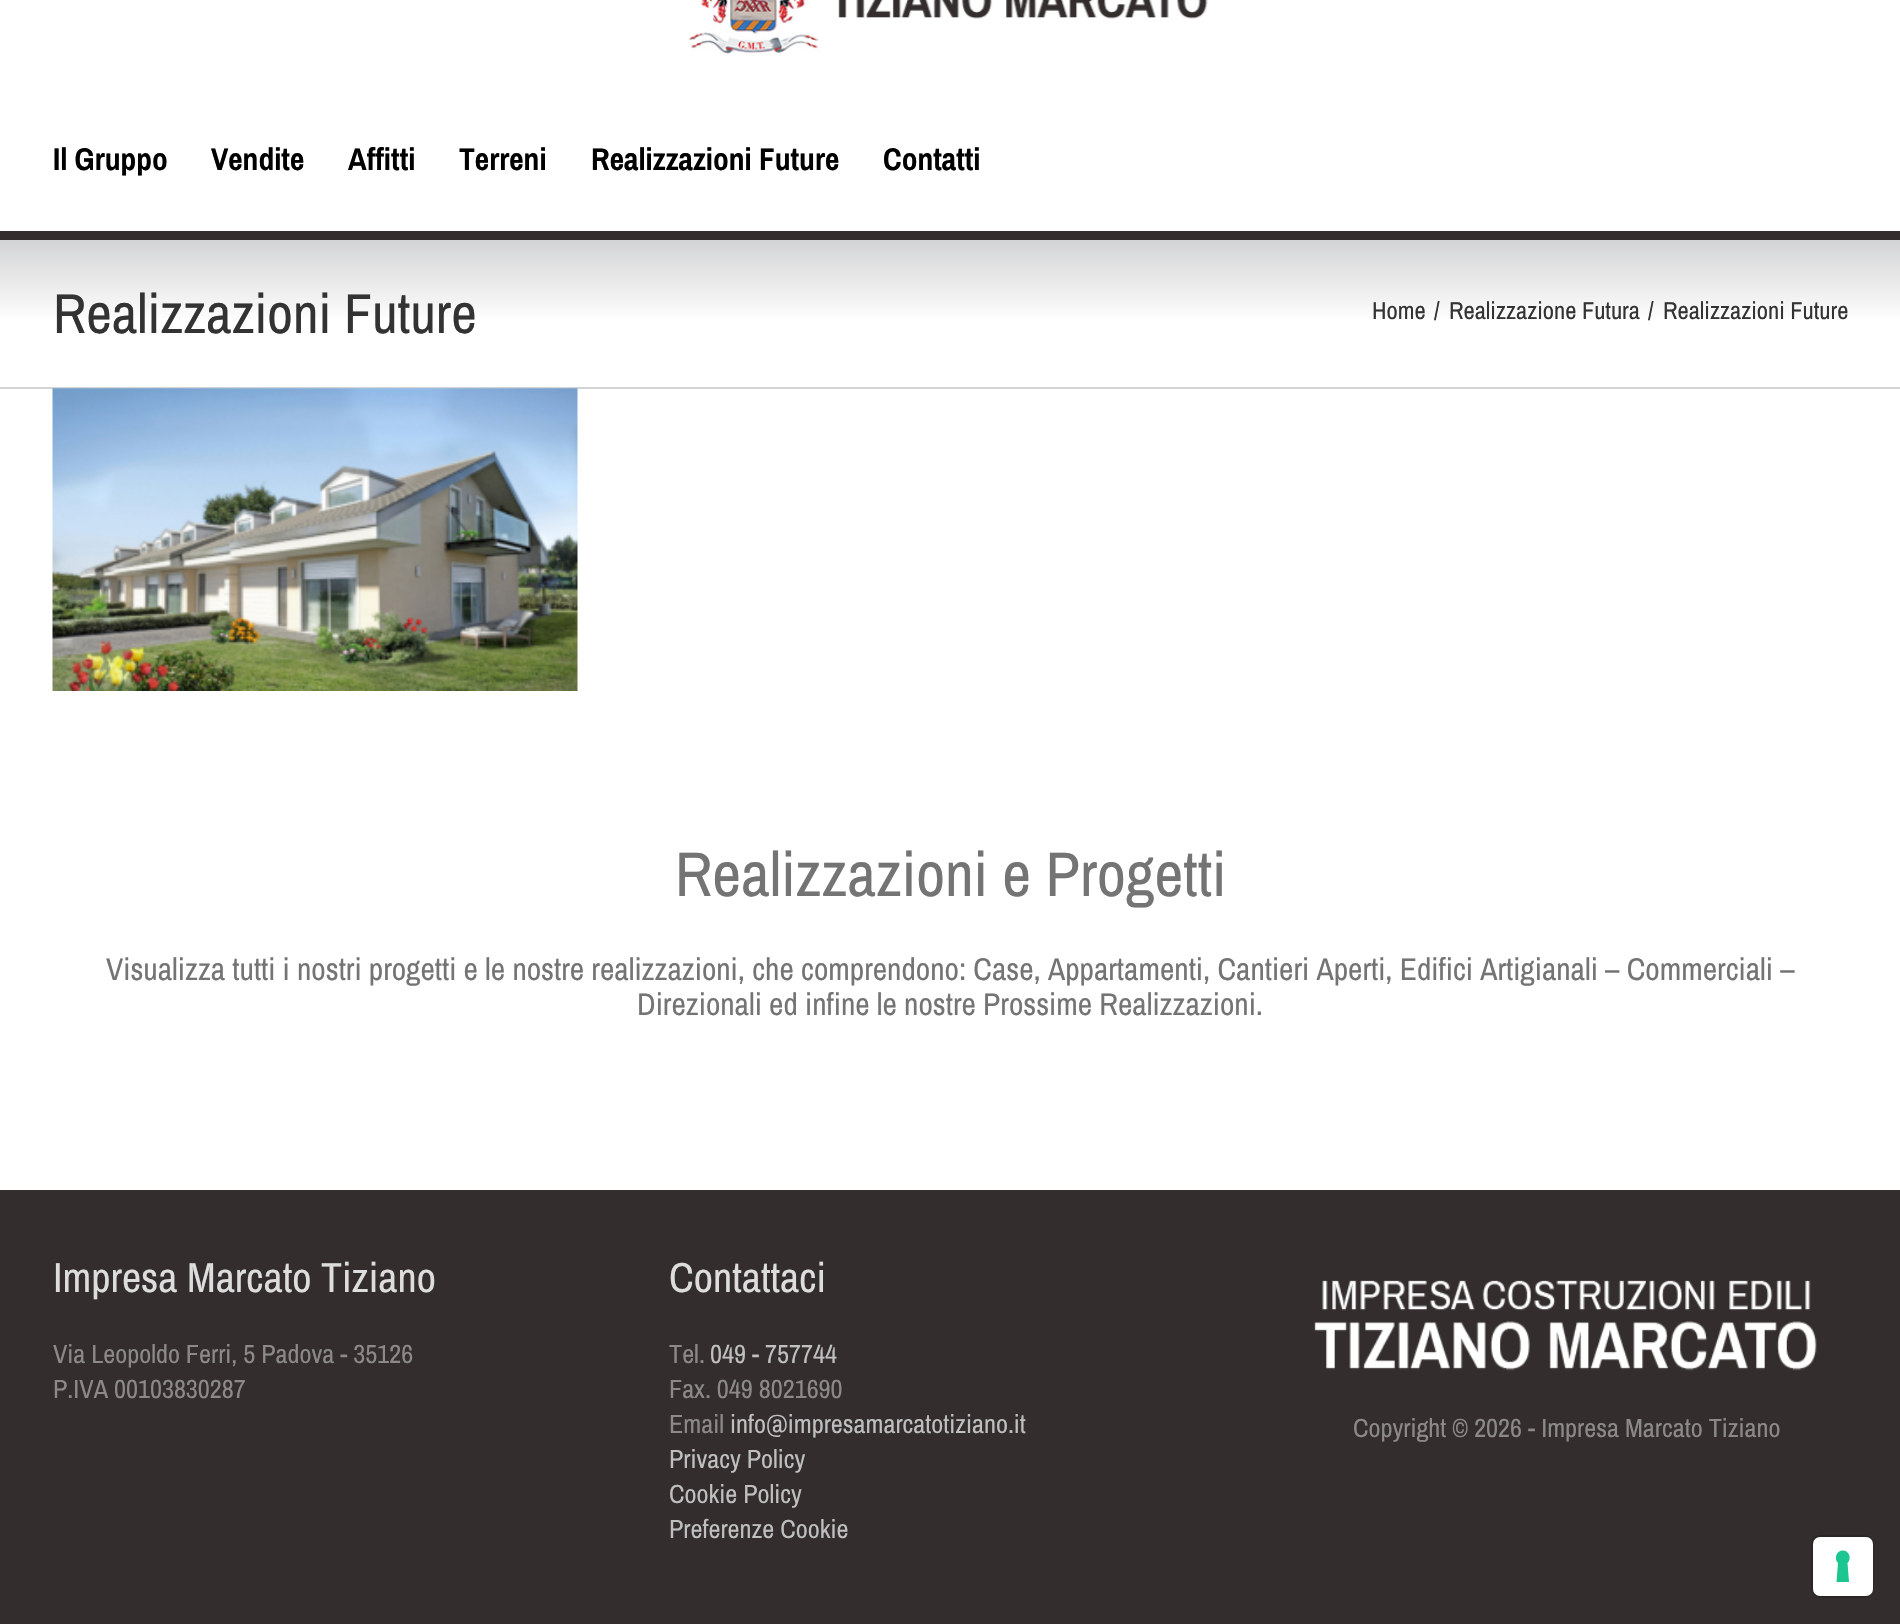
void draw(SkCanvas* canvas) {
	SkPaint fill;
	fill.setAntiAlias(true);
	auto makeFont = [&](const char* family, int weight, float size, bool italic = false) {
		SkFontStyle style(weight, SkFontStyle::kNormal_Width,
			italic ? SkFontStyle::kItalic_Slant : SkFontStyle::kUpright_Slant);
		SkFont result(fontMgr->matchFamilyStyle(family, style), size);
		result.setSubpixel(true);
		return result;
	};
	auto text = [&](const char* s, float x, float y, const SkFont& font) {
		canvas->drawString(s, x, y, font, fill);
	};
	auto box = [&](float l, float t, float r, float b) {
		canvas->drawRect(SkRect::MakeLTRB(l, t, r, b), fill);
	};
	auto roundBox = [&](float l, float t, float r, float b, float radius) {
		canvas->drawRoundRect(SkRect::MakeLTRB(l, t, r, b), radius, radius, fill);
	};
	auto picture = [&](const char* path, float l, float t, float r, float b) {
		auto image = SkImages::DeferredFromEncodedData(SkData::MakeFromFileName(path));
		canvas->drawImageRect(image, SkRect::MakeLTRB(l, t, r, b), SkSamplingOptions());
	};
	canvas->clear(0xFFFFFFFF);
	fill.setColor(0xFF332D2D);
	box(0, 231, 1900, 240);
	picture("image0.png", 689, 0, 1208, 54);
	{
		const SkColor colors[] = {0xFFD2D3D4, 0xFFFFFFFF};
		const float stops[] = {0, 0.57f};
		const SkPoint ends[] = {{950, 238}, {950, 387}};
		fill.setShader(SkGradientShader::MakeLinear(ends, colors, stops, 2, SkTileMode::kClamp));
		fill.setAlpha(255);
	}
	box(0, 240, 1900, 318);
	{
		const SkColor colors[] = {0xFFD2D3D4, 0xFFFFFFFF};
		const float stops[] = {0, 0.57f};
		const SkPoint ends[] = {{950, 387}, {950, 536}};
		fill.setShader(SkGradientShader::MakeLinear(ends, colors, stops, 2, SkTileMode::kClamp));
		fill.setAlpha(255);
	}
	box(0, 387, 1900, 389);
	picture("image1.png", 52, 388, 578, 691);
	fill.setShader(nullptr);
	fill.setColor(0xFF332D2D);
	box(0, 1190, 1900, 1624);
	picture("image2.png", 1314, 1280, 1817, 1371);
	fill.setStyle(SkPaint::kStroke_Style);
	fill.setStrokeWidth(2);
	fill.setColor(0xFF2B2626);
	canvas->drawRoundRect(SkRect::MakeLTRB(1812, 1536, 1873, 1597), 8, 8, fill);
	fill.setStyle(SkPaint::kFill_Style);
	fill.setColor(0xFFFFFFFF);
	roundBox(1813, 1537, 1873, 1596, 7);
	fill.setColor(0xFF1CC691);
	canvas->drawPath(SkPathBuilder(SkPathFillType::kEvenOdd).moveTo(1843, 1550.5f).cubicTo(1849, 1550.5f, 1852, 1558.5f, 1847.5f, 1563).lineTo(1849, 1582).lineTo(1836.5f, 1582).lineTo(1838, 1563).cubicTo(1833.5f, 1558.5f, 1836.5f, 1550.5f, 1843, 1550.5f).close().detach(), fill);
	auto font1 = makeFont("Archivo Narrow", 700, 31.5f);
	fill.setColor(0xFF000000);
	text("Il Gruppo", 53, 170, font1);
	text("Vendite", 211, 170, font1);
	text("Affitti", 348, 170, font1);
	text("Terreni", 459, 170, font1);
	text("Realizzazioni Future", 591, 170, font1);
	text("Contatti", 883, 170, font1);
	auto font2 = makeFont("Archivo Narrow", 400, 56);
	fill.setColor(0xFF333333);
	text("Realizzazioni Future", 53, 333, font2);
	auto font3 = makeFont("Archivo Narrow", 400, 24.5f);
	text("Home", 1372, 319, font3);
	text("/", 1434, 319, font3);
	text("Realizzazione Futura", 1449, 319, font3);
	text("/", 1648, 319, font3);
	text("Realizzazioni Future", 1663, 319, font3);
	auto font4 = makeFont("Archivo Narrow", 400, 63);
	fill.setColor(0xFF747474);
	text("Realizzazioni e Progetti", 675, 896, font4);
	auto font5 = makeFont("Archivo Narrow", 400, 31.5f);
	text("Visualizza tutti i nostri progetti e le nostre realizzazioni, che comprendono: Case, Appartamenti, Cantieri Aperti, Edifici Artigianali – Commerciali –", 106, 980, font5);
	text("Direzionali ed infine le nostre Prossime Realizzazioni.", 637, 1015, font5);
	auto font6 = makeFont("Archivo Narrow", 400, 42);
	fill.setColor(0xFFDDDDDD);
	text("Impresa Marcato Tiziano", 53, 1292, font6);
	auto font7 = makeFont("Archivo Narrow", 400, 26.25f);
	fill.setColor(0xFF8C8989);
	text("Via Leopoldo Ferri, 5 Padova - 35126", 53, 1363, font7);
	text("P.IVA 00103830287", 53, 1398, font7);
	fill.setColor(0xFFDDDDDD);
	text("Contattaci", 669, 1292, font6);
	fill.setColor(0xFF8C8989);
	text("Tel.", 669, 1363, font7);
	fill.setColor(0xFFBFBFBF);
	text("049 - 757744", 710, 1363, font7);
	fill.setColor(0xFF8C8989);
	text("Fax. 049 8021690", 669, 1398, font7);
	text("Email", 669, 1433, font7);
	fill.setColor(0xFFBFBFBF);
	text("info@impresamarcatotiziano.it", 730, 1433, font7);
	text("Privacy Policy", 669, 1468, font7);
	text("Cookie Policy", 669, 1503, font7);
	text("Preferenze Cookie", 669, 1538, font7);
	fill.setColor(0xFF8C8989);
	text("Copyright © 2026 - Impresa Marcato Tiziano", 1353, 1437, font7);
}
